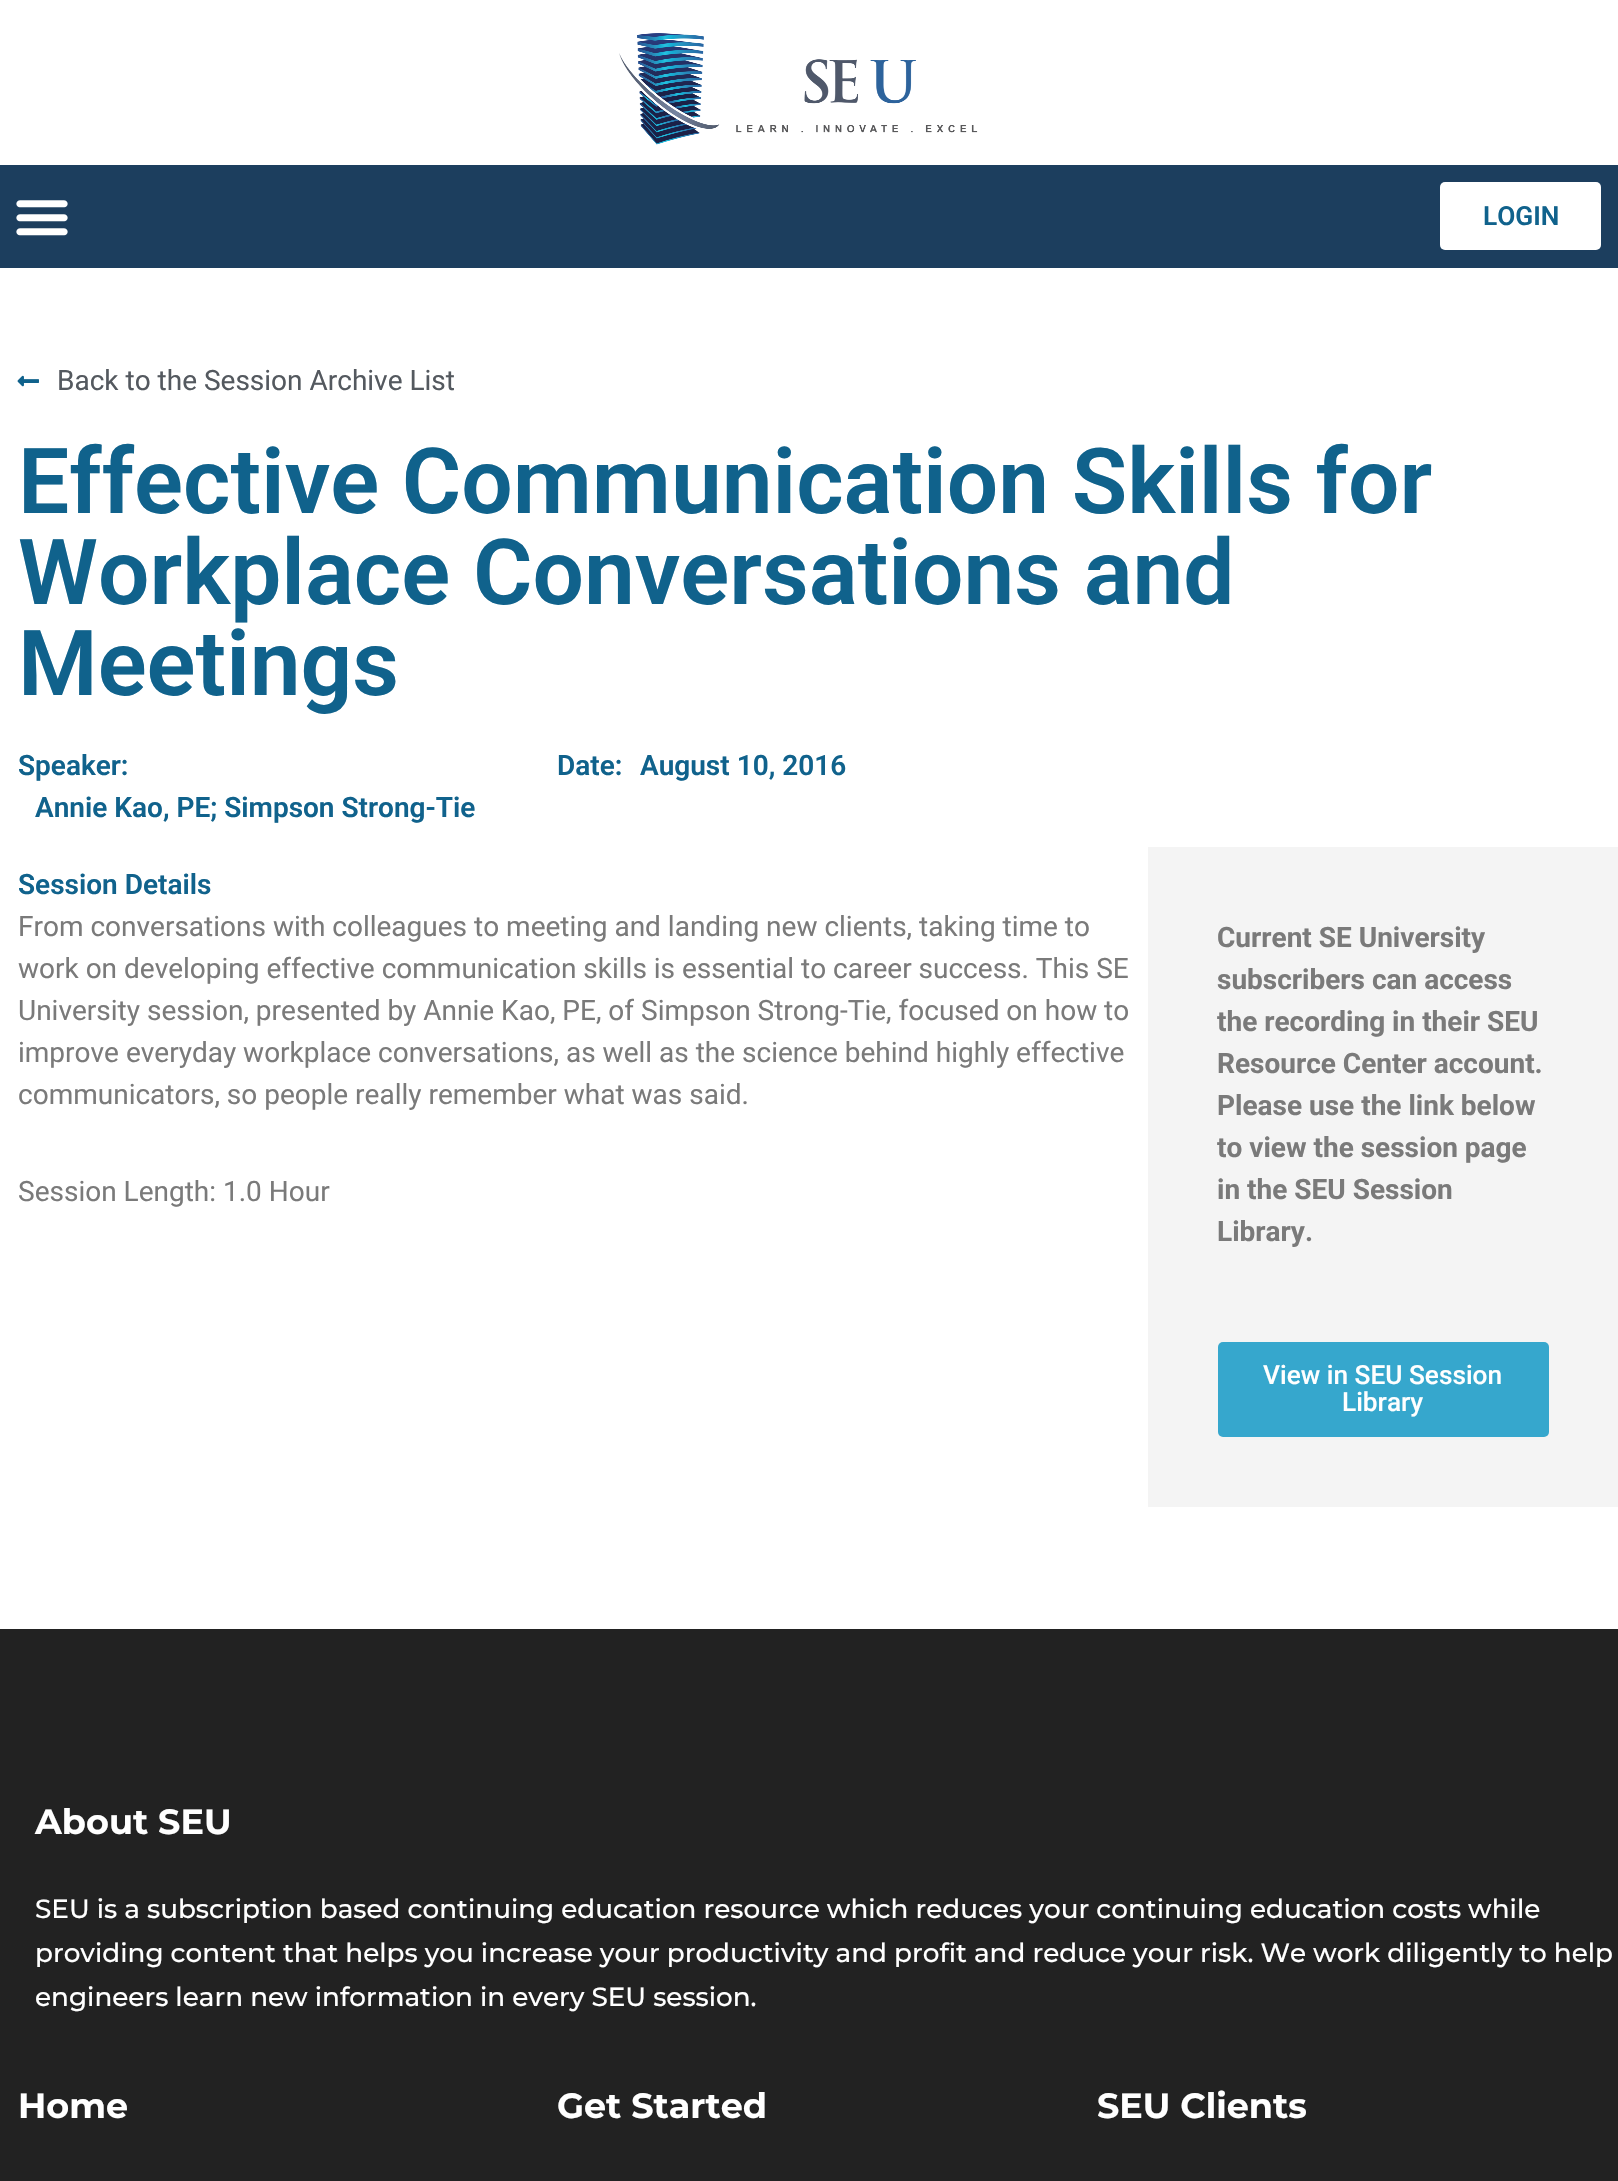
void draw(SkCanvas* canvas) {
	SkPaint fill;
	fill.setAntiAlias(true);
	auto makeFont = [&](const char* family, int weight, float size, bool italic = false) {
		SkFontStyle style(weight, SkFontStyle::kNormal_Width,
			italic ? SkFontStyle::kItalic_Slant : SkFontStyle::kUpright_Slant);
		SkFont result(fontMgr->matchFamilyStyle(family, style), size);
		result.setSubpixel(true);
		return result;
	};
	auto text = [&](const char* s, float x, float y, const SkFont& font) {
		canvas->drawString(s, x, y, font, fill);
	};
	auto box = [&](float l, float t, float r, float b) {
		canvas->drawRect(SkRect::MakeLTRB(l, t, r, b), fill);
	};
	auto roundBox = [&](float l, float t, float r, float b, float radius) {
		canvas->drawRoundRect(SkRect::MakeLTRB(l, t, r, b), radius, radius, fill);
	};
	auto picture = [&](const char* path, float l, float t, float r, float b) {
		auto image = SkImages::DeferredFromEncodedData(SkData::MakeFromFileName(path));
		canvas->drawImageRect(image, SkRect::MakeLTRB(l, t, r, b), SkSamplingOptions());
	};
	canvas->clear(0xFFFFFFFF);
	picture("image0.png", 619, 33, 978, 145);
	fill.setColor(0xFF1C3E5E);
	box(0, 165, 1618, 268);
	picture("image1.png", 16, 200, 68, 236);
	fill.setColor(0xFFFFFFFF);
	roundBox(1440, 182, 1601, 250, 5);
	picture("image2.png", 17, 375, 39, 387);
	fill.setColor(0xFFF4F4F4);
	box(1148, 847, 1618, 1507);
	fill.setColor(0xFF36A7CD);
	roundBox(1218, 1342, 1549, 1437, 5);
	fill.setColor(0xFF222222);
	box(0, 1629, 1618, 2181);
	auto font1 = makeFont("Roboto", 600, 26.25f);
	fill.setColor(0xFF10628C);
	text("LOGIN", 1483, 225, font1);
	auto font2 = makeFont("Roboto", 400, 28);
	fill.setColor(0xFF54595F);
	text("Back to the Session Archive List", 57, 390, font2);
	auto font3 = makeFont("Roboto", 600, 91);
	fill.setColor(0xFF10628C);
	text("Effective Communication Skills for", 18, 513, font3);
	text("Workplace Conversations and", 18, 604, font3);
	text("Meetings", 18, 695, font3);
	auto font4 = makeFont("Roboto", 600, 28);
	text("Speaker:", 18, 775, font4);
	text("Annie Kao, PE; Simpson Strong-Tie", 35, 817, font4);
	text("Date:", 557, 775, font4);
	text("August 10, 2016", 640, 775, font4);
	text("Session Details", 18, 894, font4);
	fill.setColor(0xFF7A7A7A);
	text("From conversations with colleagues to meeting and landing new clients, taking time to", 18, 936, font2);
	text("work on developing effective communication skills is essential to career success. This SE", 18, 978, font2);
	text("University session, presented by Annie Kao, PE, of Simpson Strong-Tie, focused on how to", 18, 1020, font2);
	text("improve everyday workplace conversations, as well as the science behind highly effective", 18, 1062, font2);
	text("communicators, so people really remember what was said.", 18, 1104, font2);
	text("Session Length: 1.0 Hour", 18, 1201, font2);
	auto font5 = makeFont("Roboto", 700, 28);
	text("Current SE University", 1217, 947, font5);
	text("subscribers can access", 1217, 989, font5);
	text("the recording in their SEU", 1217, 1031, font5);
	text("Resource Center account.", 1217, 1073, font5);
	text("Please use the link below", 1217, 1115, font5);
	text("to view the session page", 1217, 1157, font5);
	text("in the SEU Session", 1217, 1199, font5);
	text("Library.", 1217, 1241, font5);
	auto font6 = makeFont("Roboto", 500, 26.25f);
	fill.setColor(0xFFFFFFFF);
	text("View in SEU Session", 1263, 1384, font6);
	text("Library", 1342, 1411, font6);
	auto font7 = makeFont("Montserrat", 700, 35);
	text("About SEU", 35, 1834, font7);
	auto font8 = makeFont("Montserrat", 500, 26.25f);
	text("SEU is a subscription based continuing education resource which reduces your continuing education costs while", 35, 1918, font8);
	text("providing content that helps you increase your productivity and profit and reduce your risk. We work diligently to help", 35, 1962, font8);
	text("engineers learn new information in every SEU session.", 35, 2006, font8);
	text("Home", 18, 2118, font7);
	text("Get Started", 557, 2118, font7);
	text("SEU Clients", 1097, 2118, font7);
}
